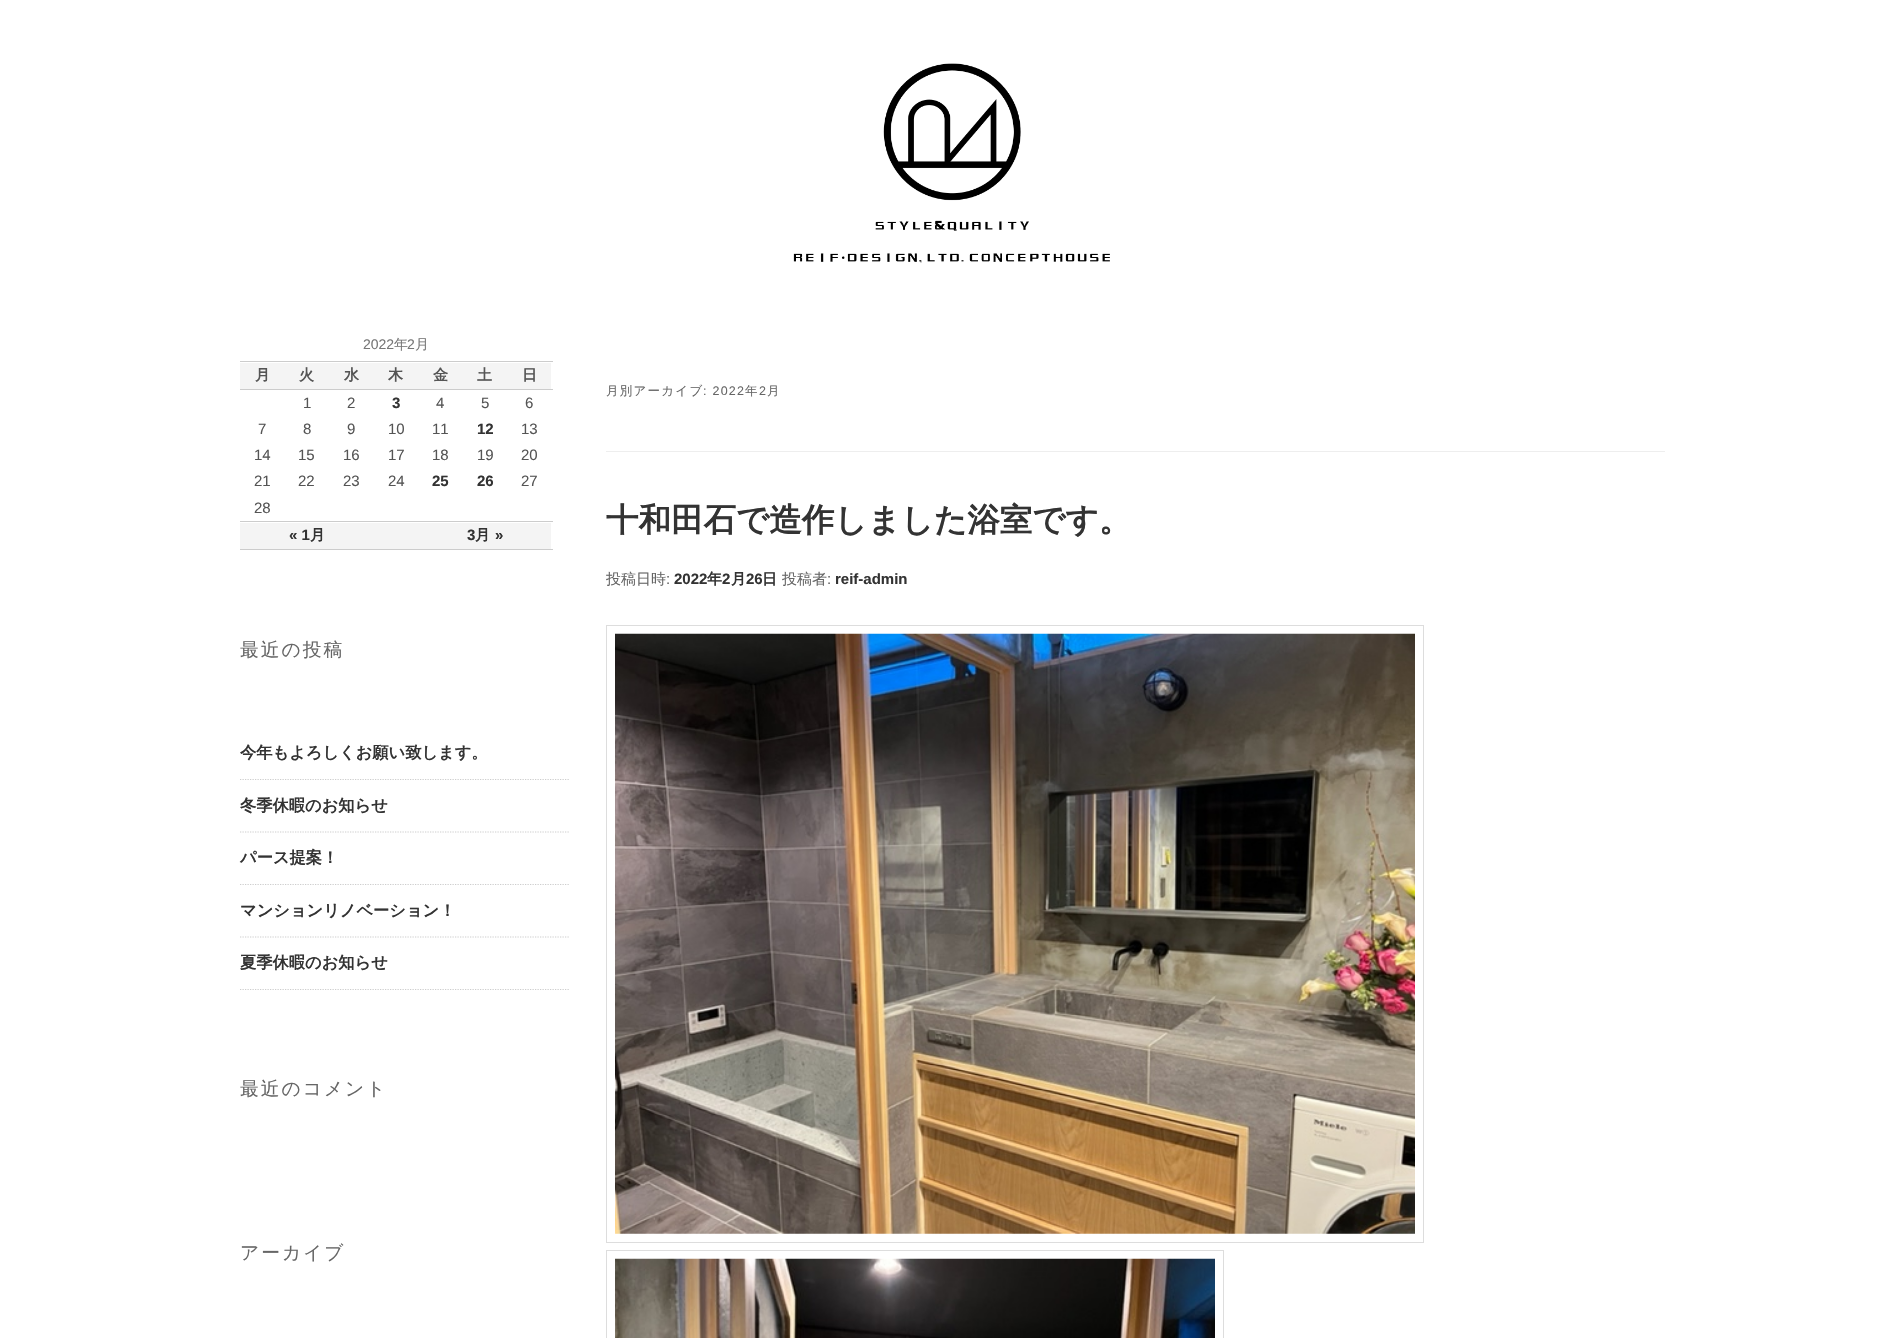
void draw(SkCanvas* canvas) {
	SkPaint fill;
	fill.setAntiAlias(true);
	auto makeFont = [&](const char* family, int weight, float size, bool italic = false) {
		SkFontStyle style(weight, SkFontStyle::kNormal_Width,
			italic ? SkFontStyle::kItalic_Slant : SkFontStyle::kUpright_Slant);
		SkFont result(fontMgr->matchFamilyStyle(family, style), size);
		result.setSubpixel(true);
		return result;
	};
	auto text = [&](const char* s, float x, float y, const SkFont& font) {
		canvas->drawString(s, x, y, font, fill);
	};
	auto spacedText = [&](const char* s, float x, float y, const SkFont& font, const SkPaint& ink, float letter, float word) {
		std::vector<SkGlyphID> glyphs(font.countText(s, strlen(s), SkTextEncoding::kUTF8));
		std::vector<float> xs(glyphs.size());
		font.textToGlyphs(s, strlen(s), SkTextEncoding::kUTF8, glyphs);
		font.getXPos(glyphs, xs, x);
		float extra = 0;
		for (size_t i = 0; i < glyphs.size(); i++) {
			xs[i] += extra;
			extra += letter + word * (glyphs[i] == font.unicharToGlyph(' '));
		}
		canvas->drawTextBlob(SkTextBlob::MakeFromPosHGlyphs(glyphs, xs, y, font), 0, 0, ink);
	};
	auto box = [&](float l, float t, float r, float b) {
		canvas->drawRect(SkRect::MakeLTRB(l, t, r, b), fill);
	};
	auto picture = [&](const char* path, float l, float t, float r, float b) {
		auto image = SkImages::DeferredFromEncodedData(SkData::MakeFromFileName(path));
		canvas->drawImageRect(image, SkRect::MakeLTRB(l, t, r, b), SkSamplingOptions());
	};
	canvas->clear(0xFFFFFFFF);
	picture("image0.png", 793, 63, 1110, 263);
	fill.setColor(0xFFF4F4F4);
	box(240, 363, 551, 389);
	fill.setColor(0xFFCCCCCC);
	box(240, 361, 553, 362);
	box(240, 389, 553, 390);
	fill.setColor(0xFFF4F4F4);
	box(240, 523, 551, 549);
	fill.setColor(0xFFCCCCCC);
	box(240, 521, 553, 522);
	box(240, 549, 553, 550);
	fill.setStyle(SkPaint::kStroke_Style);
	fill.setStrokeWidth(1.2f);
	fill.setColor(0xFFCDCDCD);
	fill.setPathEffect(SkDashPathEffect::Make({{1.25f, 1.25f}}, 0));
	canvas->drawPath(SkPathBuilder().moveTo(240, 779.5f).lineTo(569, 779.5f).detach(), fill);
	fill.setPathEffect(nullptr);
	fill.setPathEffect(SkDashPathEffect::Make({{1.25f, 1.25f}}, 0));
	canvas->drawPath(SkPathBuilder().moveTo(240, 832).lineTo(569, 832).detach(), fill);
	fill.setPathEffect(nullptr);
	fill.setPathEffect(SkDashPathEffect::Make({{1.25f, 1.25f}}, 0));
	canvas->drawPath(SkPathBuilder().moveTo(240, 884.5f).lineTo(569, 884.5f).detach(), fill);
	fill.setPathEffect(nullptr);
	fill.setPathEffect(SkDashPathEffect::Make({{1.25f, 1.25f}}, 0));
	canvas->drawPath(SkPathBuilder().moveTo(240, 937).lineTo(569, 937).detach(), fill);
	fill.setPathEffect(nullptr);
	fill.setPathEffect(SkDashPathEffect::Make({{1.25f, 1.25f}}, 0));
	canvas->drawPath(SkPathBuilder().moveTo(240, 989.5f).lineTo(569, 989.5f).detach(), fill);
	fill.setPathEffect(nullptr);
	fill.setStyle(SkPaint::kFill_Style);
	fill.setColor(0xFFEEEEEE);
	box(606, 451, 1665, 452);
	fill.setStyle(SkPaint::kStroke_Style);
	fill.setStrokeWidth(1);
	fill.setColor(0xFFDDDDDD);
	canvas->drawRect(SkRect::MakeLTRB(606.5f, 625.5f, 1423.5f, 1242.5f), fill);
	picture("image1.png", 615, 633, 1415, 1234);
	canvas->drawRect(SkRect::MakeLTRB(606.5f, 1250.5f, 1223.5f, 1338.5f), fill);
	picture("image2.png", 615, 1258, 1215, 1338);
	auto font1 = makeFont("Liberation Sans", 400, 14);
	fill.setStyle(SkPaint::kFill_Style);
	fill.setColor(0xFF777777);
	text("2022", 363, 349, font1);
	auto font2 = makeFont("WenQuanYi Zen Hei", 500, 14);
	text("年", 394, 349, font2);
	text("2", 407, 349, font1);
	text("月", 415, 349, font2);
	auto font3 = makeFont("WenQuanYi Zen Hei", 700, 15);
	fill.setColor(0xFF555555);
	text("月", 255, 380, font3);
	text("火", 299, 380, font3);
	text("水", 344, 380, font3);
	text("木", 388, 380, font3);
	text("金", 433, 380, font3);
	text("土", 477, 380, font3);
	text("日", 522, 380, font3);
	auto font4 = makeFont("Liberation Sans", 400, 15);
	text("1", 303, 408, font4);
	text("2", 347, 408, font4);
	auto font5 = makeFont("Liberation Sans", 700, 15);
	fill.setColor(0xFF333333);
	text("3", 392, 408, font5);
	fill.setColor(0xFF555555);
	text("4", 436, 408, font4);
	text("5", 481, 408, font4);
	text("6", 525, 408, font4);
	text("7", 258, 434, font4);
	text("8", 303, 434, font4);
	text("9", 347, 434, font4);
	text("10", 388, 434, font4);
	text("11", 432, 434, font4);
	fill.setColor(0xFF333333);
	text("12", 477, 434, font5);
	fill.setColor(0xFF555555);
	text("13", 521, 434, font4);
	text("14", 254, 460, font4);
	text("15", 298, 460, font4);
	text("16", 343, 460, font4);
	text("17", 388, 460, font4);
	text("18", 432, 460, font4);
	text("19", 477, 460, font4);
	text("20", 521, 460, font4);
	text("21", 254, 486, font4);
	text("22", 298, 486, font4);
	text("23", 343, 486, font4);
	text("24", 388, 486, font4);
	fill.setColor(0xFF333333);
	text("25", 432, 486, font5);
	text("26", 477, 486, font5);
	fill.setColor(0xFF555555);
	text("27", 521, 486, font4);
	text("28", 254, 513, font4);
	fill.setColor(0xFF333333);
	text("« 1", 289, 540, font5);
	text("月", 310, 540, font3);
	text("3", 467, 540, font5);
	text("月", 475, 540, font3);
	text("»", 495, 540, font5);
	auto font6 = makeFont("WenQuanYi Zen Hei", 500, 18.75f);
	fill.setColor(0xFF666666);
	spacedText("最近の投稿", 240, 656, font6, fill, 2, 0);
	auto font7 = makeFont("WenQuanYi Zen Hei", 700, 16.25f);
	fill.setColor(0xFF333333);
	text("今年もよろしくお願い致します。", 240, 758, font7);
	text("冬季休暇のお知らせ", 240, 811, font7);
	text("パース提案！", 240, 863, font7);
	text("マンションリノベーション！", 240, 916, font7);
	text("夏季休暇のお知らせ", 240, 968, font7);
	fill.setColor(0xFF666666);
	spacedText("最近のコメント", 240, 1095, font6, fill, 2, 0);
	spacedText("アーカイブ", 240, 1259, font6, fill, 2, 0);
	auto font8 = makeFont("WenQuanYi Zen Hei", 500, 12.5f);
	spacedText("月別アーカイブ", 606, 395, font8, fill, 1.25f, 0);
	auto font9 = makeFont("Liberation Sans", 400, 12.5f);
	spacedText(": 2022", 703, 395, font9, fill, 1.25f, 0);
	spacedText("年", 745, 395, font8, fill, 1.25f, 0);
	spacedText("2", 759, 395, font9, fill, 1.25f, 0);
	spacedText("月", 767, 395, font8, fill, 1.25f, 0);
	auto font10 = makeFont("WenQuanYi Zen Hei", 700, 32.5f);
	fill.setColor(0xFF333333);
	text("十和田石で造作しました浴室です。", 606, 531, font10);
	auto font11 = makeFont("WenQuanYi Zen Hei", 500, 15);
	fill.setColor(0xFF666666);
	text("投稿日時", 606, 584, font11);
	text(":", 666, 584, font4);
	fill.setColor(0xFF333333);
	text("2022", 674, 584, font5);
	text("年", 707, 584, font3);
	text("2", 722, 584, font5);
	text("月", 731, 584, font3);
	text("26", 746, 584, font5);
	text("日", 762, 584, font3);
	fill.setColor(0xFF666666);
	text("投稿者", 782, 584, font11);
	text(":", 827, 584, font4);
	fill.setColor(0xFF333333);
	text("reif-admin", 835, 584, font5);
}
